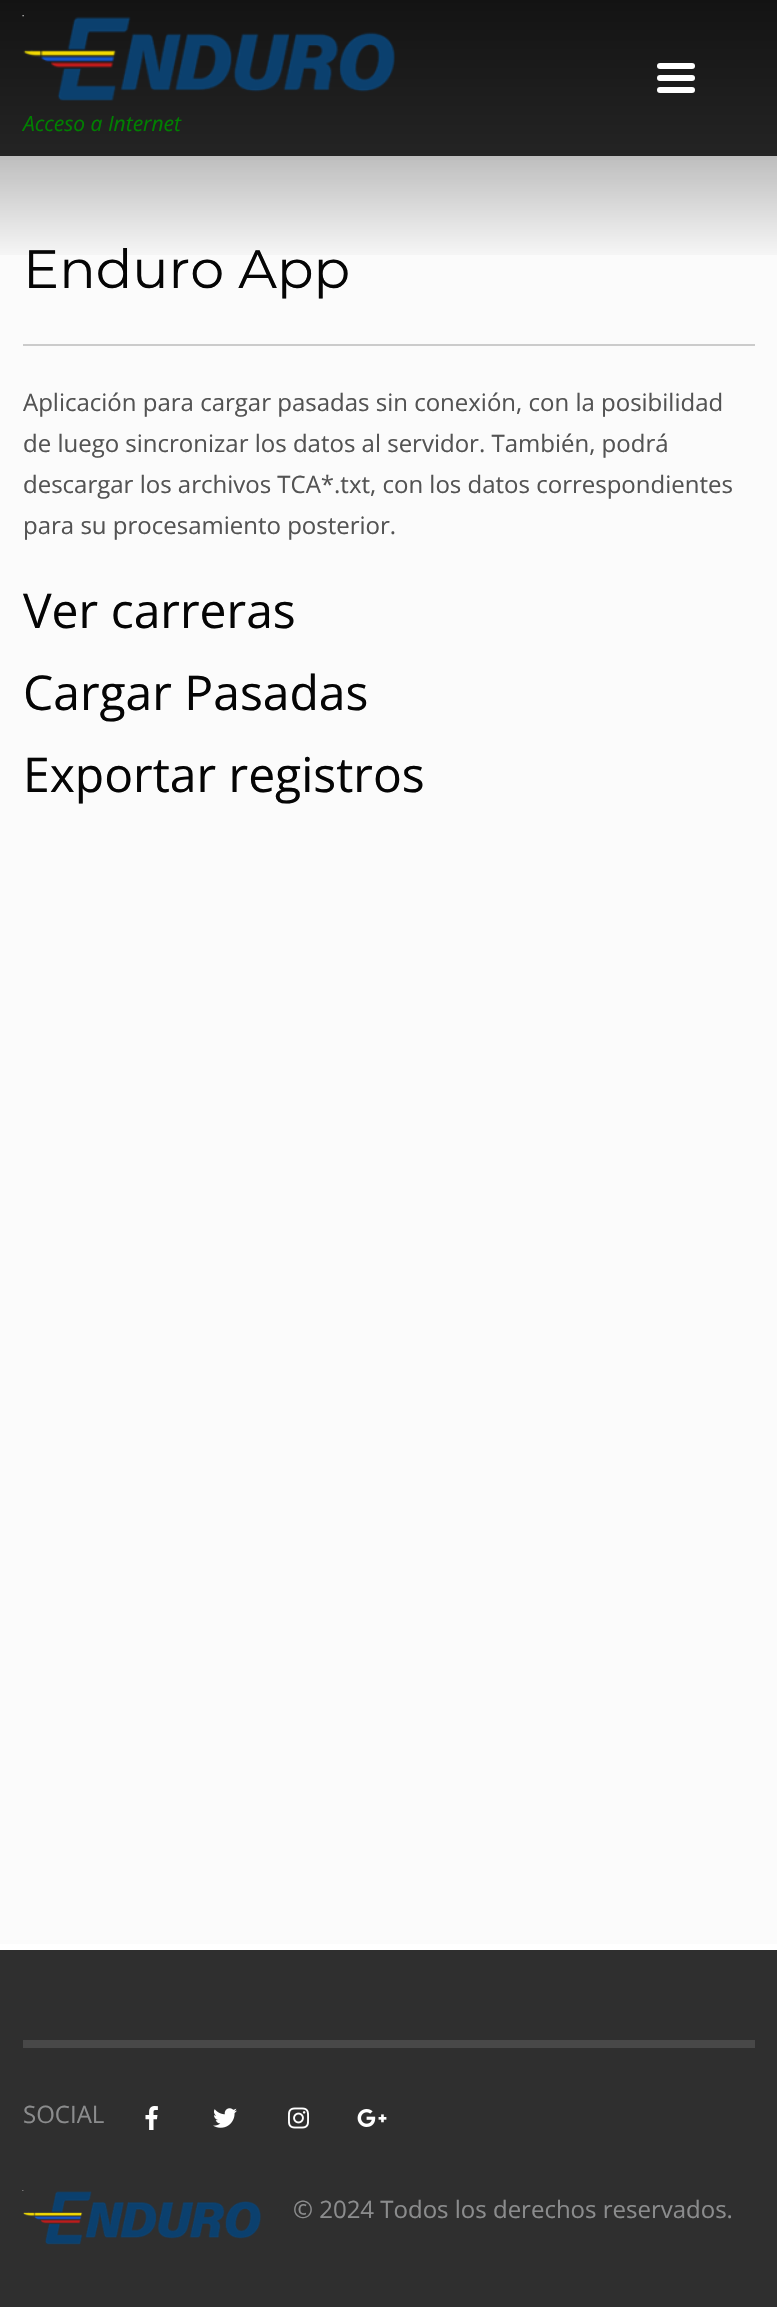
void draw(SkCanvas* canvas) {
	SkPaint fill;
	fill.setAntiAlias(true);
	auto makeFont = [&](const char* family, int weight, float size, bool italic = false) {
		SkFontStyle style(weight, SkFontStyle::kNormal_Width,
			italic ? SkFontStyle::kItalic_Slant : SkFontStyle::kUpright_Slant);
		SkFont result(fontMgr->matchFamilyStyle(family, style), size);
		result.setSubpixel(true);
		return result;
	};
	auto text = [&](const char* s, float x, float y, const SkFont& font) {
		canvas->drawString(s, x, y, font, fill);
	};
	auto box = [&](float l, float t, float r, float b) {
		canvas->drawRect(SkRect::MakeLTRB(l, t, r, b), fill);
	};
	auto roundBox = [&](float l, float t, float r, float b, float radius) {
		canvas->drawRoundRect(SkRect::MakeLTRB(l, t, r, b), radius, radius, fill);
	};
	auto picture = [&](const char* path, float l, float t, float r, float b) {
		auto image = SkImages::DeferredFromEncodedData(SkData::MakeFromFileName(path));
		canvas->drawImageRect(image, SkRect::MakeLTRB(l, t, r, b), SkSamplingOptions());
	};
	canvas->clear(0xFFFBFBFB);
	fill.setColor(0xFF2F2F2F);
	box(0, 0, 777, 156);
	fill.setColor(0xFFCBCBCB);
	box(23, 344, 755, 346);
	fill.setColor(0xFF2F2F2F);
	box(0, 1950, 777, 2307);
	fill.setColor(0xFFFFFFFF);
	box(0, 1944, 777, 1950);
	fill.setColor(0xFF484848);
	box(23, 2040, 755, 2048);
	picture("image1.png", 145, 2106, 158, 2130);
	picture("image2.png", 213, 2108, 237, 2128);
	picture("image3.png", 288, 2107, 309, 2129);
	picture("image4.png", 357, 2109, 387, 2127);
	picture("image5.png", 22, 2190, 261, 2245);
	auto font1 = makeFont("Montserrat", 400, 54);
	fill.setColor(0xFF050505);
	text("Enduro App", 23, 288, font1);
	{
		const SkColor colors[] = {0x99000000, 0x00000000};
		const float stops[] = {0, 1};
		const SkPoint ends[] = {{389, 0}, {389, 264}};
		fill.setShader(SkGradientShader::MakeLinear(ends, colors, stops, 2, SkTileMode::kClamp));
		fill.setAlpha(255);
	}
	box(0, 0, 777, 255);
	fill.setShader(nullptr);
	fill.setColor(0xFFFFFFFF);
	roundBox(657, 63, 695, 69, 3);
	roundBox(657, 75, 695, 81, 3);
	roundBox(657, 87, 695, 93, 3);
	auto font2 = makeFont("Open Sans", 400, 21, true);
	fill.setColor(0xFF008000);
	text("Acceso a Internet", 23, 131, font2);
	picture("image0.png", 22, 15, 395, 101);
	auto font3 = makeFont("Open Sans", 400, 24);
	fill.setColor(0xFF535353);
	text("Aplicación para cargar pasadas sin conexión, con la posibilidad", 23, 411, font3);
	text("de luego sincronizar los datos al servidor. También, podrá", 23, 452, font3);
	text("descargar los archivos TCA*.txt, con los datos correspondientes", 23, 493, font3);
	text("para su procesamiento posterior.", 23, 534, font3);
	auto font4 = makeFont("Open Sans", 400, 48);
	fill.setColor(0xFF050505);
	text("Ver carreras", 23, 628, font4);
	text("Cargar Pasadas", 23, 710, font4);
	text("Exportar registros", 23, 792, font4);
	fill.setColor(0xFF8B8C8D);
	text("SOCIAL", 23, 2123, font3);
	text("© 2024 Todos los derechos reservados.", 293, 2218, font3);
}
